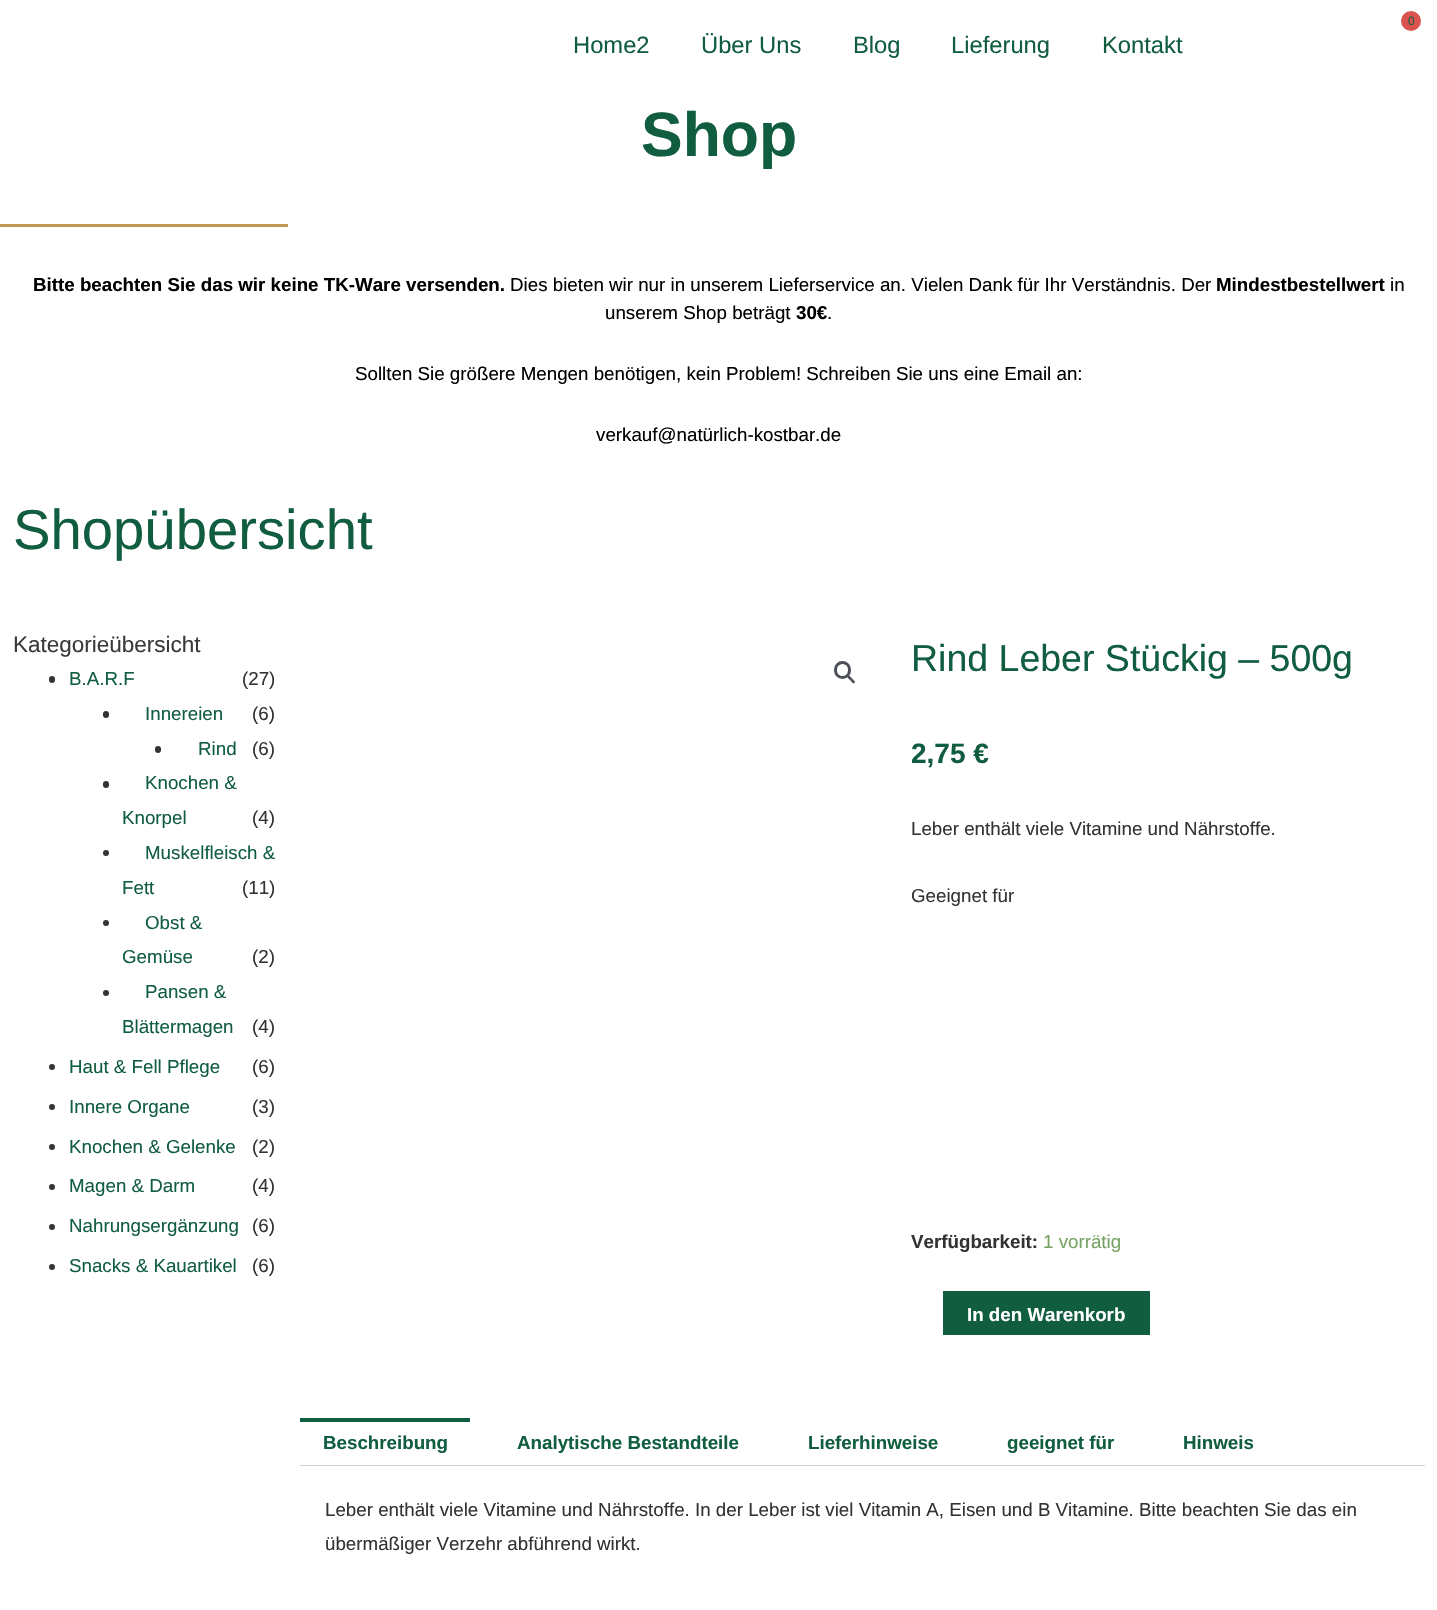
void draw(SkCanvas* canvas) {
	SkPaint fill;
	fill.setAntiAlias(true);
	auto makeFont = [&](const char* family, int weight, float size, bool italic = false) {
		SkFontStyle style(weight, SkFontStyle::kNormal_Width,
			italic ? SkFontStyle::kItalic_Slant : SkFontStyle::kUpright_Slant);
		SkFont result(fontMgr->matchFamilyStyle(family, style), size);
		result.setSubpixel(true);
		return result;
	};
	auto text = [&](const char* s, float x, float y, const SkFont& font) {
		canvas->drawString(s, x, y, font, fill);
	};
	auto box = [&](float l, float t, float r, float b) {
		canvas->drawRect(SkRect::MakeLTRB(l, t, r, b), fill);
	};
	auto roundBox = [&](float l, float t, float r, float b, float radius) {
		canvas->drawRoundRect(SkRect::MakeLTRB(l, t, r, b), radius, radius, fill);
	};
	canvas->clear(0xFFFFFFFF);
	fill.setColor(0xFFD9534F);
	canvas->drawCircle(1411, 21, 10, fill);
	fill.setColor(0xFFC19855);
	box(0, 224, 288, 227);
	fill.setColor(0xFF333333);
	roundBox(49, 676, 55, 683, 3);
	roundBox(103, 711, 109, 718, 3);
	roundBox(155, 746, 161, 753, 3);
	roundBox(103, 781, 109, 788, 3);
	canvas->drawCircle(106, 853, 3, fill);
	canvas->drawCircle(106, 923, 3, fill);
	canvas->drawCircle(106, 993, 3, fill);
	canvas->drawCircle(52, 1067, 3, fill);
	canvas->drawCircle(52, 1107, 3, fill);
	canvas->drawCircle(52, 1147, 3, fill);
	canvas->drawCircle(52, 1187, 3, fill);
	canvas->drawCircle(52, 1227, 3, fill);
	canvas->drawCircle(52, 1267, 3, fill);
	fill.setStyle(SkPaint::kStroke_Style);
	fill.setStrokeWidth(3);
	fill.setColor(0xFF4B4F58);
	canvas->drawRoundRect(SkRect::MakeLTRB(835.5f, 662.5f, 849.5f, 677.5f), 7, 7, fill);
	fill.setStyle(SkPaint::kFill_Style);
	canvas->drawPath(SkPathBuilder().moveTo(847.5f, 676).cubicTo(849, 674.5f, 851, 677.5f, 852, 678.5f).cubicTo(852.5f, 679, 856, 681.5f, 854.5f, 683).cubicTo(853, 684.5f, 851, 681, 850, 680).cubicTo(849.5f, 679.5f, 846, 677, 847.5f, 676).close().detach(), fill);
	fill.setColor(0xFF115D40);
	box(943, 1291, 1150, 1335);
	box(300, 1418, 470, 1422);
	fill.setColor(0xFFD3CED2);
	box(300, 1465, 1425, 1466);
	auto font1 = makeFont("Liberation Sans", 400, 12);
	fill.setColor(0xFF115D40);
	text("0", 1408, 25, font1);
	auto font2 = makeFont("Liberation Sans", 400, 23.75f);
	text("Home2", 573, 53, font2);
	text("Über Uns", 701, 53, font2);
	text("Blog", 853, 53, font2);
	text("Lieferung", 951, 53, font2);
	text("Kontakt", 1102, 53, font2);
	auto font3 = makeFont("Liberation Sans", 700, 62.5f);
	text("Shop", 641, 156, font3);
	auto font4 = makeFont("Liberation Sans", 700, 18.75f);
	fill.setColor(0xFF000000);
	text("Bitte beachten Sie das wir keine TK-Ware versenden.", 33, 291, font4);
	auto font5 = makeFont("Liberation Sans", 400, 18.75f);
	text("Dies bieten wir nur in unserem Lieferservice an. Vielen Dank für Ihr Verständnis. Der", 510, 291, font5);
	text("Mindestbestellwert", 1216, 291, font4);
	text("in", 1390, 291, font5);
	text("unserem Shop beträgt", 605, 319, font5);
	text("30€", 796, 319, font4);
	text(".", 827, 319, font5);
	text("Sollten Sie größere Mengen benötigen, kein Problem! Schreiben Sie uns eine Email an:", 355, 380, font5);
	text("verkauf@natürlich-kostbar.de", 596, 441, font5);
	auto font6 = makeFont("Liberation Sans", 400, 56.25f);
	fill.setColor(0xFF115D40);
	text("Shopübersicht", 13, 549, font6);
	auto font7 = makeFont("Liberation Sans", 400, 22.5f);
	fill.setColor(0xFF3A3A3A);
	text("Kategorieübersicht", 13, 652, font7);
	fill.setColor(0xFF115D40);
	text("B.A.R.F", 69, 685, font5);
	fill.setColor(0xFF333333);
	text("(27)", 242, 685, font5);
	fill.setColor(0xFF115D40);
	text("Innereien", 145, 720, font5);
	fill.setColor(0xFF333333);
	text("(6)", 252, 720, font5);
	fill.setColor(0xFF115D40);
	text("Rind", 198, 755, font5);
	fill.setColor(0xFF333333);
	text("(6)", 252, 755, font5);
	fill.setColor(0xFF115D40);
	text("Knochen &", 145, 789, font5);
	text("Knorpel", 122, 824, font5);
	fill.setColor(0xFF333333);
	text("(4)", 252, 824, font5);
	fill.setColor(0xFF115D40);
	text("Muskelfleisch &", 145, 859, font5);
	text("Fett", 122, 894, font5);
	fill.setColor(0xFF333333);
	text("(11)", 242, 894, font5);
	fill.setColor(0xFF115D40);
	text("Obst &", 145, 929, font5);
	text("Gemüse", 122, 963, font5);
	fill.setColor(0xFF333333);
	text("(2)", 252, 963, font5);
	fill.setColor(0xFF115D40);
	text("Pansen &", 145, 998, font5);
	text("Blättermagen", 122, 1033, font5);
	fill.setColor(0xFF333333);
	text("(4)", 252, 1033, font5);
	fill.setColor(0xFF115D40);
	text("Haut & Fell Pflege", 69, 1073, font5);
	fill.setColor(0xFF333333);
	text("(6)", 252, 1073, font5);
	fill.setColor(0xFF115D40);
	text("Innere Organe", 69, 1113, font5);
	fill.setColor(0xFF333333);
	text("(3)", 252, 1113, font5);
	fill.setColor(0xFF115D40);
	text("Knochen & Gelenke", 69, 1153, font5);
	fill.setColor(0xFF333333);
	text("(2)", 252, 1153, font5);
	fill.setColor(0xFF115D40);
	text("Magen & Darm", 69, 1192, font5);
	fill.setColor(0xFF333333);
	text("(4)", 252, 1192, font5);
	fill.setColor(0xFF115D40);
	text("Nahrungsergänzung", 69, 1232, font5);
	fill.setColor(0xFF333333);
	text("(6)", 252, 1232, font5);
	fill.setColor(0xFF115D40);
	text("Snacks & Kauartikel", 69, 1272, font5);
	fill.setColor(0xFF333333);
	text("(6)", 252, 1272, font5);
	auto font8 = makeFont("Liberation Sans", 400, 37.5f);
	fill.setColor(0xFF115D40);
	text("Rind Leber Stückig – 500g", 911, 671, font8);
	auto font9 = makeFont("Liberation Sans", 700, 28);
	text("2,75 €", 911, 763, font9);
	fill.setColor(0xFF333333);
	text("Leber enthält viele Vitamine und Nährstoffe.", 911, 835, font5);
	text("Geeignet für", 911, 902, font5);
	text("Verfügbarkeit:", 911, 1248, font4);
	fill.setColor(0xFF77A464);
	text("1 vorrätig", 1043, 1248, font5);
	fill.setColor(0xFFFFFFFF);
	text("In den Warenkorb", 967, 1321, font4);
	fill.setColor(0xFF115D40);
	text("Beschreibung", 323, 1449, font4);
	text("Analytische Bestandteile", 517, 1449, font4);
	text("Lieferhinweise", 808, 1449, font4);
	text("geeignet für", 1007, 1449, font4);
	text("Hinweis", 1183, 1449, font4);
	fill.setColor(0xFF333333);
	text("Leber enthält viele Vitamine und Nährstoffe. In der Leber ist viel Vitamin A, Eisen und B Vitamine. Bitte beachten Sie das ein", 325, 1516, font5);
	text("übermäßiger Verzehr abführend wirkt.", 325, 1550, font5);
}
